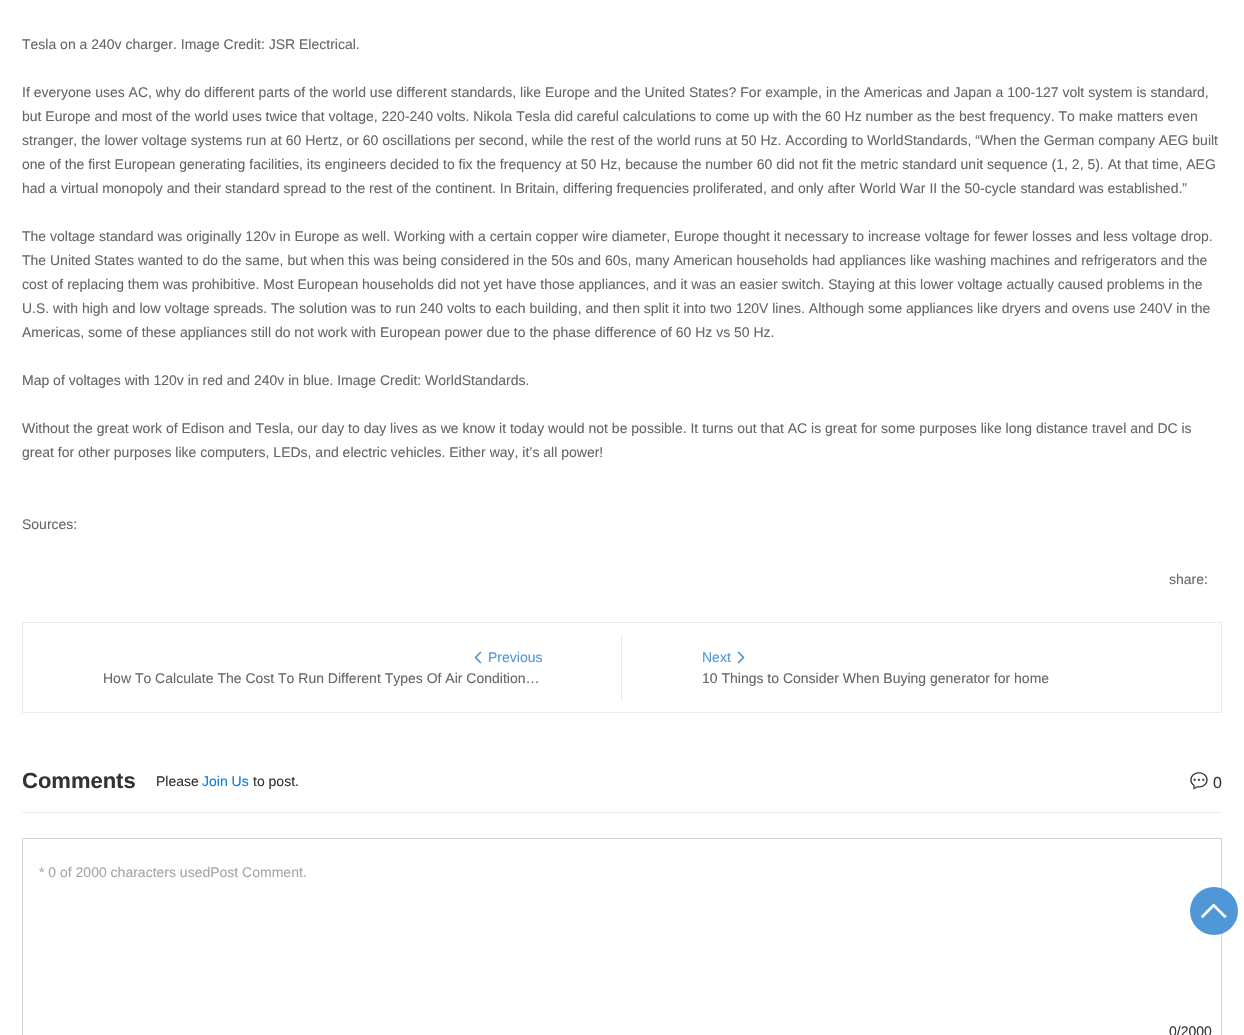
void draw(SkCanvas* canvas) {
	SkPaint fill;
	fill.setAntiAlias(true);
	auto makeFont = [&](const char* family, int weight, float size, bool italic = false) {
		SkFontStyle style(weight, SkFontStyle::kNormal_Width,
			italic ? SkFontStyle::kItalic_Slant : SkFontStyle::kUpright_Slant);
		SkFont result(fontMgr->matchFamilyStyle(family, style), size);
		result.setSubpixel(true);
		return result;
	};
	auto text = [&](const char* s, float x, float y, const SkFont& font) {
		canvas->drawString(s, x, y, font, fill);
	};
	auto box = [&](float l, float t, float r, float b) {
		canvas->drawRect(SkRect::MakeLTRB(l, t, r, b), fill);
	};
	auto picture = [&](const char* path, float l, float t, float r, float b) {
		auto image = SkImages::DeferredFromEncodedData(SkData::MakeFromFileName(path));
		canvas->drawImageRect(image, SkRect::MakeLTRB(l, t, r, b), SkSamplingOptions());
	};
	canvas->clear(0xFFFFFFFF);
	fill.setStyle(SkPaint::kStroke_Style);
	fill.setStrokeWidth(1);
	fill.setColor(0xFFECECEC);
	canvas->drawRect(SkRect::MakeLTRB(22.5f, 622.5f, 1221.5f, 712.5f), fill);
	picture("image0.png", 474, 651, 482, 664);
	fill.setStyle(SkPaint::kFill_Style);
	box(621, 635, 622, 701);
	picture("image1.png", 737, 651, 745, 664);
	box(22, 812, 1222, 813);
	picture("image2.png", 1190, 772, 1208, 790);
	fill.setStyle(SkPaint::kStroke_Style);
	fill.setColor(0xFFD2D2D2);
	canvas->drawRect(SkRect::MakeLTRB(22.5f, 838.5f, 1221.5f, 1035.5f), fill);
	fill.setStyle(SkPaint::kFill_Style);
	fill.setColor(0xFF5097D7);
	canvas->drawCircle(1214, 911, 24, fill);
	picture("image3.png", 1201, 904, 1227, 918);
	auto font1 = makeFont("Liberation Sans", 400, 14);
	fill.setColor(0xFF666666);
	text("Tesla on a 240v charger. Image Credit: JSR Electrical.", 22, 49, font1);
	text("If everyone uses AC, why do different parts of the world use different standards, like Europe and the United States? For example, in the Americas and Japan a 100-127 volt system is standard,", 22, 97, font1);
	text("but Europe and most of the world uses twice that voltage, 220-240 volts. Nikola Tesla did careful calculations to come up with the 60 Hz number as the best frequency. To make matters even", 22, 121, font1);
	text("stranger, the lower voltage systems run at 60 Hertz, or 60 oscillations per second, while the rest of the world runs at 50 Hz. According to WorldStandards, “When the German company AEG built", 22, 145, font1);
	text("one of the first European generating facilities, its engineers decided to fix the frequency at 50 Hz, because the number 60 did not fit the metric standard unit sequence (1, 2, 5). At that time, AEG", 22, 169, font1);
	text("had a virtual monopoly and their standard spread to the rest of the continent. In Britain, differing frequencies proliferated, and only after World War II the 50-cycle standard was established.”", 22, 193, font1);
	text("The voltage standard was originally 120v in Europe as well. Working with a certain copper wire diameter, Europe thought it necessary to increase voltage for fewer losses and less voltage drop.", 22, 241, font1);
	text("The United States wanted to do the same, but when this was being considered in the 50s and 60s, many American households had appliances like washing machines and refrigerators and the", 22, 265, font1);
	text("cost of replacing them was prohibitive. Most European households did not yet have those appliances, and it was an easier switch. Staying at this lower voltage actually caused problems in the", 22, 289, font1);
	text("U.S. with high and low voltage spreads. The solution was to run 240 volts to each building, and then split it into two 120V lines. Although some appliances like dryers and ovens use 240V in the", 22, 313, font1);
	text("Americas, some of these appliances still do not work with European power due to the phase difference of 60 Hz vs 50 Hz.", 22, 337, font1);
	text("Map of voltages with 120v in red and 240v in blue. Image Credit: WorldStandards.", 22, 385, font1);
	text("Without the great work of Edison and Tesla, our day to day lives as we know it today would not be possible. It turns out that AC is great for some purposes like long distance travel and DC is", 22, 433, font1);
	text("great for other purposes like computers, LEDs, and electric vehicles. Either way, it’s all power!", 22, 457, font1);
	text("Sources:", 22, 529, font1);
	text("share:", 1169, 584, font1);
	fill.setColor(0xFF5097D7);
	text("Previous", 488, 662, font1);
	fill.setColor(0xFF666666);
	text("How To Calculate The Cost To Run Different Types Of Air Condition…", 103, 683, font1);
	fill.setColor(0xFF5097D7);
	text("Next", 702, 662, font1);
	fill.setColor(0xFF666666);
	text("10 Things to Consider When Buying generator for home", 702, 683, font1);
	auto font2 = makeFont("Liberation Sans", 700, 22);
	fill.setColor(0xFF333333);
	text("Comments", 22, 788, font2);
	text("Please", 156, 786, font1);
	fill.setColor(0xFF067CE0);
	text("Join Us", 202, 786, font1);
	fill.setColor(0xFF333333);
	text("to post.", 253, 786, font1);
	auto font3 = makeFont("Liberation Sans", 400, 16);
	text("0", 1213, 788, font3);
	fill.setColor(0xFFA6A6A6);
	text("* 0 of 2000 characters usedPost Comment.", 39, 877, font1);
	fill.setColor(0xFF333333);
	text("0/2000", 1169, 1036, font1);
}
